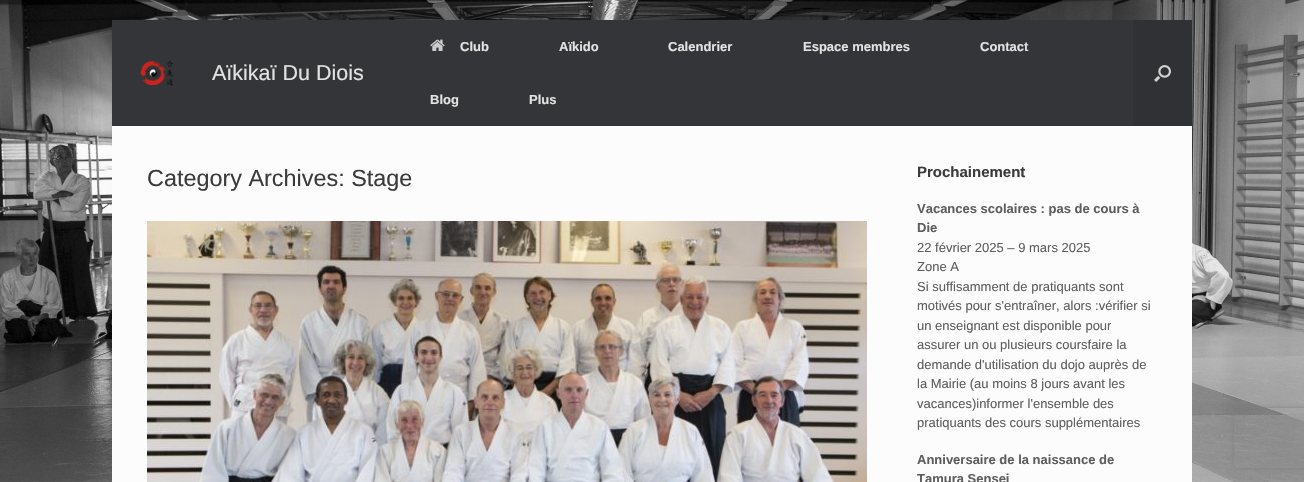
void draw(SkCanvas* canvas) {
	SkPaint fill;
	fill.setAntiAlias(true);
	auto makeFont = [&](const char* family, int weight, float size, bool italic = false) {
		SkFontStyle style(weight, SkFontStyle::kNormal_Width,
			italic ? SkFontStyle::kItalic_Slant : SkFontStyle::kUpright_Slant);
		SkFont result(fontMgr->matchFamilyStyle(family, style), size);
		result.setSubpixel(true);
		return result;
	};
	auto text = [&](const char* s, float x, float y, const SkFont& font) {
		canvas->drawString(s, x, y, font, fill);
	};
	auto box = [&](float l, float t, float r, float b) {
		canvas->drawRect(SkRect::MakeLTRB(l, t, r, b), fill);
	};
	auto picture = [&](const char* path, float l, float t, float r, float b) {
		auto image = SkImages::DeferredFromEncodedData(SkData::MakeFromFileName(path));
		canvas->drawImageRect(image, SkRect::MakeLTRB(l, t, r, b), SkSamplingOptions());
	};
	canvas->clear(0xFFFFFFFF);
	picture("image0.png", 0, 0, 1304, 482);
	fill.setColor(0xFF343538);
	box(112, 20, 1133, 126);
	picture("image1.png", 140, 60, 174, 86);
	picture("image2.png", 430, 39, 445, 51);
	fill.setColor(0xFF303134);
	box(1133, 20, 1192, 126);
	picture("image3.png", 1154, 65, 1171, 82);
	fill.setColor(0xFFFCFCFC);
	box(112, 126, 1192, 482);
	picture("image4.png", 147, 221, 867, 482);
	canvas->save();
	canvas->clipPath(SkPathBuilder(SkPathFillType::kEvenOdd).moveTo(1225, 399).lineTo(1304, 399).lineTo(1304, 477).lineTo(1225, 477).close().moveTo(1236, 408).lineTo(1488, 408).cubicTo(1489, 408, 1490, 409, 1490, 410).lineTo(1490, 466).cubicTo(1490, 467, 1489, 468, 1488, 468).lineTo(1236, 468).cubicTo(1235, 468, 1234, 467, 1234, 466).lineTo(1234, 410).cubicTo(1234, 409, 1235, 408, 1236, 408).close().detach(), true);
	fill.setColor(0xFF808080);
	fill.setMaskFilter(SkMaskFilter::MakeBlur(kNormal_SkBlurStyle, 2.5f));
	canvas->drawRoundRect(SkRect::MakeLTRB(1234, 408, 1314, 468), 2, 2, fill);
	fill.setMaskFilter(nullptr);
	canvas->restore();
	auto font1 = makeFont("Liberation Sans", 400, 21.5f);
	fill.setColor(0xFFE2E2E2);
	text("Aïkikaï Du Diois", 212, 80, font1);
	auto font2 = makeFont("Liberation Sans", 700, 13);
	text("Club", 460, 51, font2);
	text("Aïkido", 559, 51, font2);
	text("Calendrier", 668, 51, font2);
	text("Espace membres", 803, 51, font2);
	text("Contact", 980, 51, font2);
	text("Blog", 430, 104, font2);
	text("Plus", 529, 104, font2);
	auto font3 = makeFont("Liberation Sans", 400, 23.4f);
	fill.setColor(0xFF3B3B3B);
	text("Category Archives: Stage", 147, 186, font3);
	auto font4 = makeFont("Liberation Sans", 700, 15);
	text("Prochainement", 917, 177, font4);
	fill.setColor(0xFF5E5E5E);
	text("Vacances scolaires : pas de cours à", 917, 213, font2);
	text("Die", 917, 232, font2);
	auto font5 = makeFont("Liberation Sans", 400, 13);
	text("22 février 2025 – 9 mars 2025", 917, 252, font5);
	text("Zone A", 917, 271, font5);
	text("Si suffisamment de pratiquants sont", 917, 291, font5);
	text("motivés pour s'entraîner, alors :vérifier si", 917, 310, font5);
	text("un enseignant est disponible pour", 917, 330, font5);
	text("assurer un ou plusieurs coursfaire la", 917, 349, font5);
	text("demande d'utilisation du dojo auprès de", 917, 369, font5);
	text("la Mairie (au moins 8 jours avant les", 917, 388, font5);
	text("vacances)informer l'ensemble des", 917, 408, font5);
	text("pratiquants des cours supplémentaires", 917, 427, font5);
	text("Anniversaire de la naissance de", 917, 464, font2);
	text("Tamura Sensei", 917, 483, font2);
}
